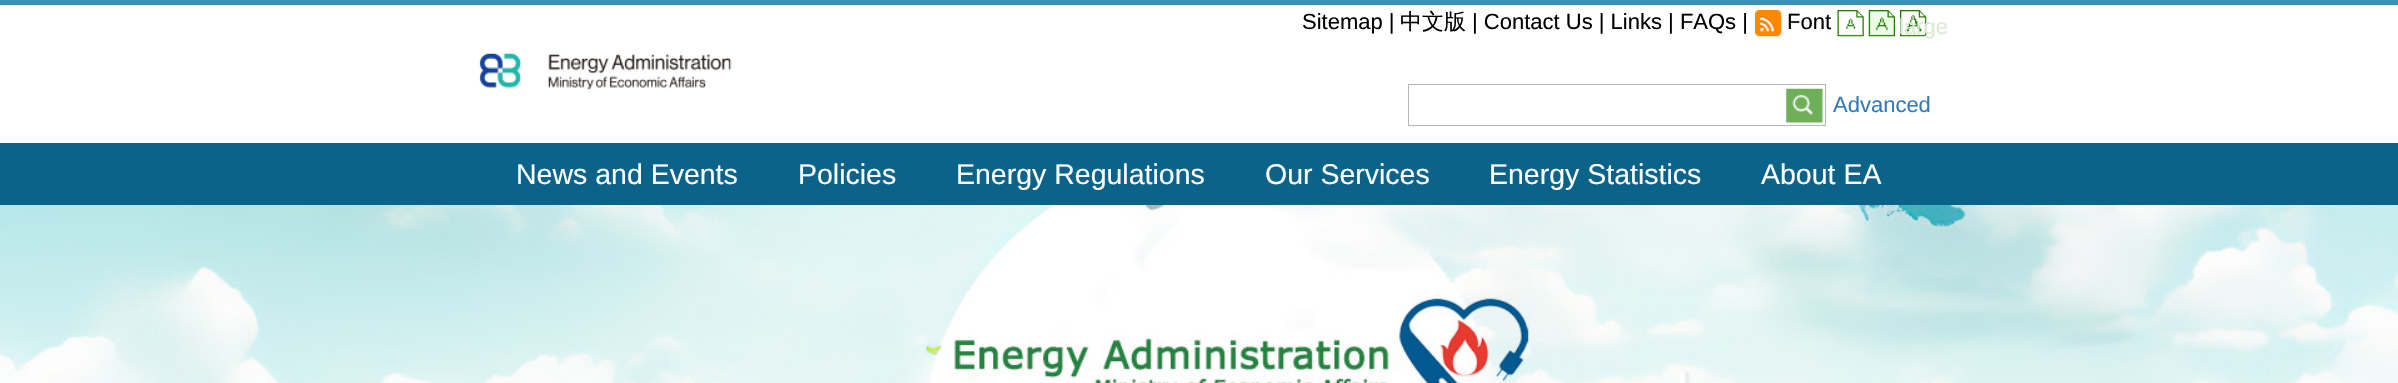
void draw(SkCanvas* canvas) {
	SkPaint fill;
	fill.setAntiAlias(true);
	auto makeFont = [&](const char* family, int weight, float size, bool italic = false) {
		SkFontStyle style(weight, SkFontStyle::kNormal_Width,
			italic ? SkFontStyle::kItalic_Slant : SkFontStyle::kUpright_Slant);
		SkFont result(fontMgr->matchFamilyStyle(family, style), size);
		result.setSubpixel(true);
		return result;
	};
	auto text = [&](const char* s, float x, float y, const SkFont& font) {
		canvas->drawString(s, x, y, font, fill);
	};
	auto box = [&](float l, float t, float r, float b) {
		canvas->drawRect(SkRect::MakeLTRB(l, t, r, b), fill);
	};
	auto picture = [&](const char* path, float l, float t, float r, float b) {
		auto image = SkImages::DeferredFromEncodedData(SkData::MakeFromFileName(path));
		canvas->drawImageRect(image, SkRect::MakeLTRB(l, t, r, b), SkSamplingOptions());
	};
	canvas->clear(0xFFFFFFFF);
	fill.setColor(0xFF3E90B6);
	box(0, 0, 2398, 5);
	picture("image0.png", 1755, 10, 1782, 37);
	picture("image1.png", 1837, 10, 1864, 37);
	picture("image2.png", 1868, 10, 1895, 37);
	picture("image3.png", 1900, 10, 1927, 37);
	picture("image4.png", 479, 53, 732, 90);
	fill.setStyle(SkPaint::kStroke_Style);
	fill.setStrokeWidth(1);
	fill.setColor(0xFFB6B6B6);
	canvas->drawRect(SkRect::MakeLTRB(1408.5f, 84.5f, 1825.5f, 125.5f), fill);
	picture("image5.png", 1786, 88, 1823, 123);
	fill.setStyle(SkPaint::kFill_Style);
	fill.setColor(0xFF0B6389);
	box(0, 143, 2398, 205);
	picture("image6.png", 0, 205, 2398, 383);
	auto font1 = makeFont("Liberation Sans", 400, 22);
	fill.setColor(0xFF000000);
	text("Sitemap |", 1302, 29, font1);
	auto font2 = makeFont("WenQuanYi Zen Hei", 500, 22);
	text("中文版", 1400, 29, font2);
	text("| Contact Us | Links | FAQs |", 1472, 29, font1);
	text("Font", 1787, 29, font1);
	fill.setColor(0xFFDBE9D6);
	text("large", 1899, 34, font1);
	fill.setColor(0xFF337AB7);
	text("Advanced", 1833, 112, font1);
	auto font3 = makeFont("Liberation Sans", 400, 28.5f);
	fill.setColor(0xFFFFFFFF);
	text("News and Events", 516, 184, font3);
	text("Policies", 798, 184, font3);
	text("Energy Regulations", 956, 184, font3);
	text("Our Services", 1265, 184, font3);
	text("Energy Statistics", 1489, 184, font3);
	text("About EA", 1761, 184, font3);
}
